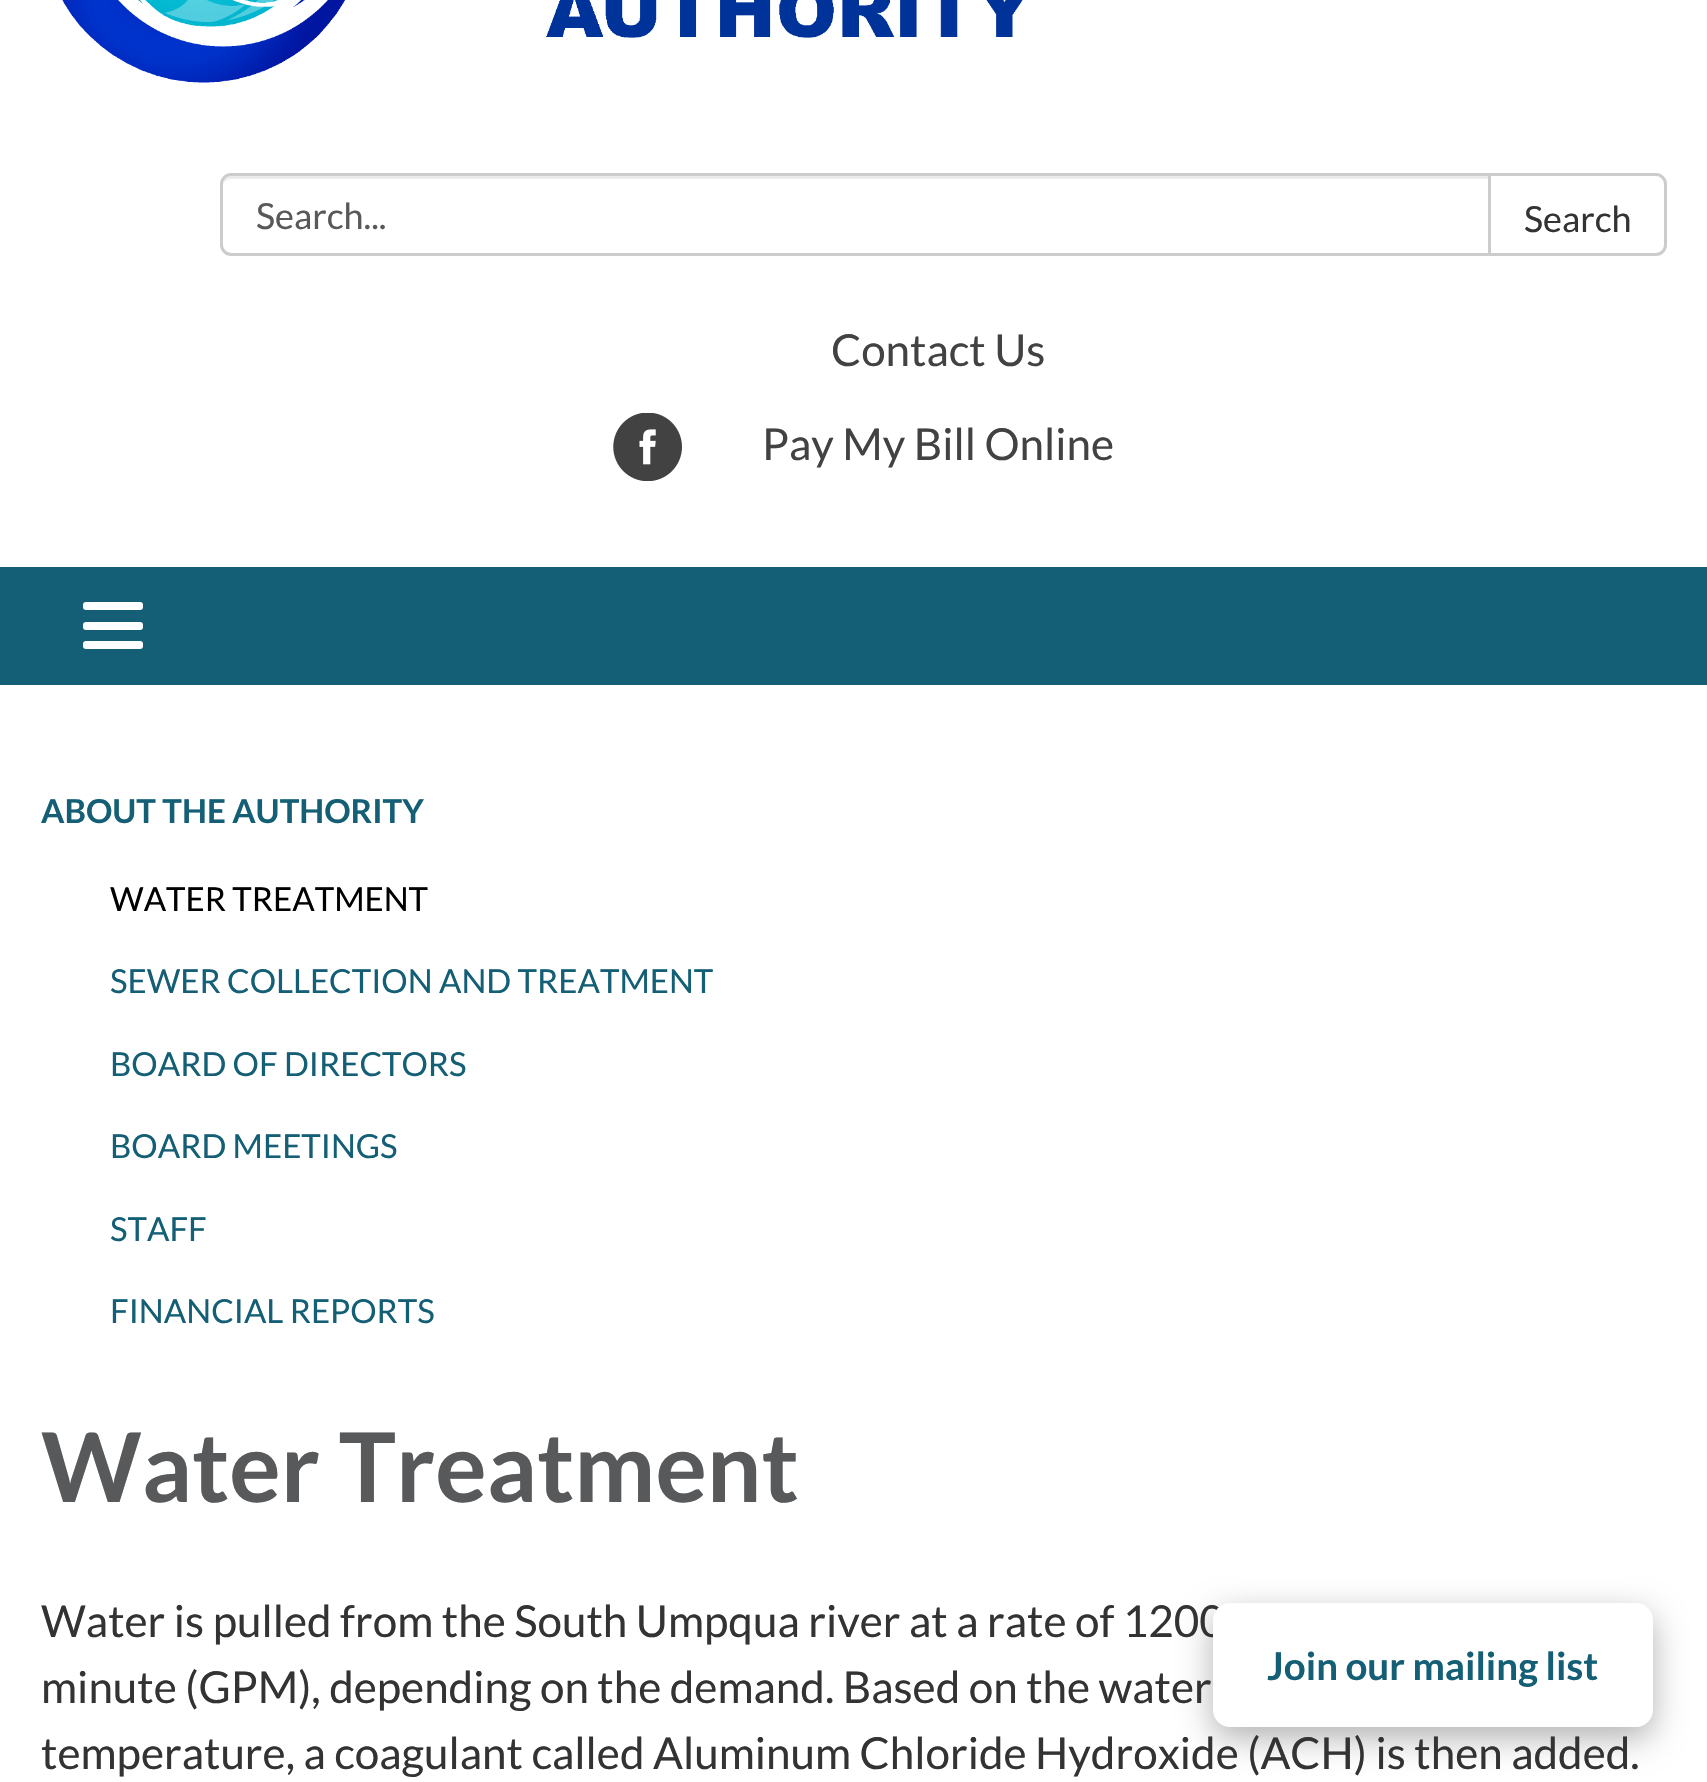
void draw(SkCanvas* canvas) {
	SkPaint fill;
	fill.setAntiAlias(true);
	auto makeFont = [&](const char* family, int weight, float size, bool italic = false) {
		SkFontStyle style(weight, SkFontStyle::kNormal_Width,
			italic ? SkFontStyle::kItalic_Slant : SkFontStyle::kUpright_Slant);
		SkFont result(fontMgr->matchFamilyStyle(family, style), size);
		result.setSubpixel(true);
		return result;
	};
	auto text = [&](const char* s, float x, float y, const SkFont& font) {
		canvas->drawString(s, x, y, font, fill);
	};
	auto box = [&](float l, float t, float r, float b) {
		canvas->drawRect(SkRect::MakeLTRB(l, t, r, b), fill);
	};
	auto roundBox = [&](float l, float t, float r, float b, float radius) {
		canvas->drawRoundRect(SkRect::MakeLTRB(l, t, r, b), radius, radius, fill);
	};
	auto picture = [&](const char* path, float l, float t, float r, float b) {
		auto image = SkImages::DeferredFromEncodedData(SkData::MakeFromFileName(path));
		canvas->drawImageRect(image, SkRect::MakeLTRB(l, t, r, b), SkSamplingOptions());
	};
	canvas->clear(0xFF145F76);
	fill.setColor(0xFFFFFFFF);
	box(0, 0, 1707, 567);
	picture("image0.png", 62, 0, 1023, 83);
	fill.setColor(0xFFECECEC);
	canvas->drawPath(SkPathBuilder().moveTo(231, 179).lineTo(1488, 179).lineTo(1488, 176).lineTo(231, 176).cubicTo(225, 176, 223, 182, 223, 187).cubicTo(223, 182, 226, 179, 231, 179).close().detach(), fill);
	fill.setStyle(SkPaint::kStroke_Style);
	fill.setStrokeWidth(3);
	fill.setColor(0xFFCCCCCC);
	canvas->drawPath(SkPathBuilder().moveTo(231, 174.5f).lineTo(1489.5f, 174.5f).lineTo(1489.5f, 254.5f).lineTo(231, 254.5f).cubicTo(226, 254.5f, 221.5f, 250, 221.5f, 245).lineTo(221.5f, 184).cubicTo(221.5f, 179, 226, 174.5f, 231, 174.5f).close().detach(), fill);
	fill.setStyle(SkPaint::kFill_Style);
	fill.setColor(0xFFFFFFFF);
	canvas->drawPath(SkPathBuilder().moveTo(1489.5f, 174.5f).lineTo(1656, 174.5f).cubicTo(1661, 174.5f, 1665.5f, 179, 1665.5f, 184).lineTo(1665.5f, 245).cubicTo(1665.5f, 250, 1661, 254.5f, 1656, 254.5f).lineTo(1489.5f, 254.5f).close().detach(), fill);
	fill.setStyle(SkPaint::kStroke_Style);
	fill.setColor(0xFFCCCCCC);
	canvas->drawPath(SkPathBuilder().moveTo(1489.5f, 174.5f).lineTo(1656, 174.5f).cubicTo(1661, 174.5f, 1665.5f, 179, 1665.5f, 184).lineTo(1665.5f, 245).cubicTo(1665.5f, 250, 1661, 254.5f, 1656, 254.5f).lineTo(1489.5f, 254.5f).close().detach(), fill);
	picture("image1.png", 613, 413, 682, 481);
	fill.setStyle(SkPaint::kFill_Style);
	fill.setColor(0xFFFFFFFF);
	roundBox(83, 602, 143, 610, 3);
	roundBox(83, 622, 143, 630, 3);
	roundBox(83, 641, 143, 649, 3);
	box(0, 685, 1707, 1782);
	fill.setColor(0x4D000000);
	fill.setMaskFilter(SkMaskFilter::MakeBlur(kNormal_SkBlurStyle, 16.5f));
	canvas->drawRoundRect(SkRect::MakeLTRB(1213, 1614, 1653, 1738), 17, 17, fill);
	fill.setMaskFilter(nullptr);
	auto font1 = makeFont("Lato", 400, 36);
	fill.setColor(0xFF58595B);
	text("Search...", 256, 229, font1);
	fill.setColor(0xFF333333);
	text("Search", 1524, 232, font1);
	auto font2 = makeFont("Lato", 400, 44);
	fill.setColor(0xFF424242);
	text("Contact Us", 831, 366, font2);
	text("Pay My Bill Online", 762, 460, font2);
	auto font3 = makeFont("Lato", 700, 33);
	fill.setColor(0xFF145F76);
	text("ABOUT THE AUTHORITY", 41, 823, font3);
	auto font4 = makeFont("Lato", 400, 33);
	fill.setColor(0xFF000000);
	text("WATER TREATMENT", 110, 911, font4);
	fill.setColor(0xFF145F76);
	text("SEWER COLLECTION AND TREATMENT", 110, 993, font4);
	text("BOARD OF DIRECTORS", 110, 1076, font4);
	text("BOARD MEETINGS", 110, 1158, font4);
	text("STAFF", 110, 1241, font4);
	text("FINANCIAL REPORTS", 110, 1323, font4);
	auto font5 = makeFont("Lato", 700, 96.25f);
	fill.setColor(0xFF58595B);
	text("Water Treatment", 41, 1502, font5);
	fill.setColor(0xFF333333);
	text("Water is pulled from the South Umpqua river at a rate of 1200", 41, 1637, font2);
	text("minute (GPM), depending on the demand. Based on the water", 41, 1703, font2);
	text("temperature, a coagulant called Aluminum Chloride Hydroxide (ACH) is then added.", 41, 1769, font2);
	fill.setColor(0xFFFFFFFF);
	roundBox(1213, 1603, 1653, 1727, 17);
	auto font6 = makeFont("Lato", 700, 38.5f);
	fill.setColor(0xFF145F76);
	text("Join our mailing list", 1267, 1680, font6);
}
